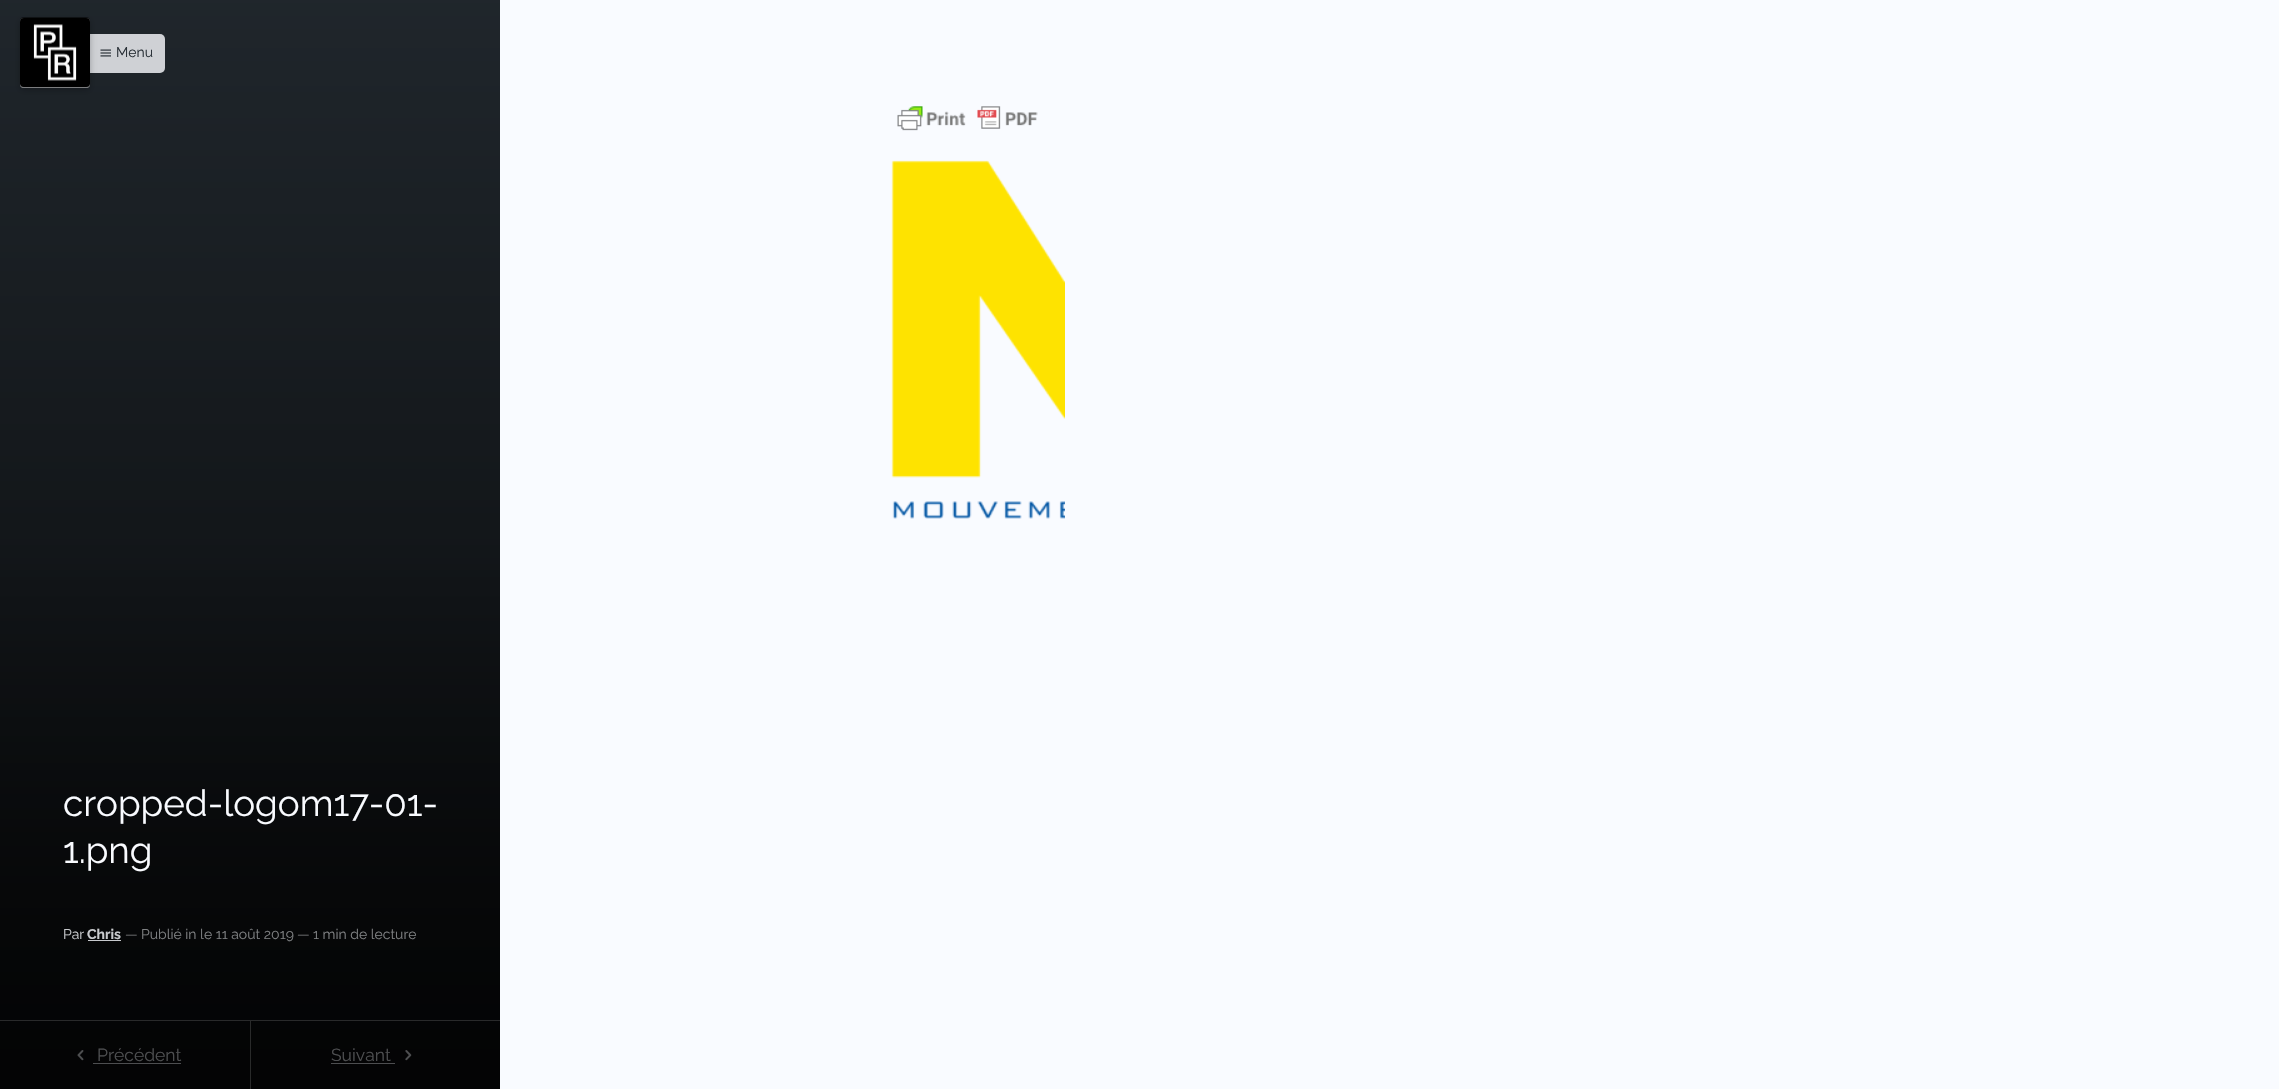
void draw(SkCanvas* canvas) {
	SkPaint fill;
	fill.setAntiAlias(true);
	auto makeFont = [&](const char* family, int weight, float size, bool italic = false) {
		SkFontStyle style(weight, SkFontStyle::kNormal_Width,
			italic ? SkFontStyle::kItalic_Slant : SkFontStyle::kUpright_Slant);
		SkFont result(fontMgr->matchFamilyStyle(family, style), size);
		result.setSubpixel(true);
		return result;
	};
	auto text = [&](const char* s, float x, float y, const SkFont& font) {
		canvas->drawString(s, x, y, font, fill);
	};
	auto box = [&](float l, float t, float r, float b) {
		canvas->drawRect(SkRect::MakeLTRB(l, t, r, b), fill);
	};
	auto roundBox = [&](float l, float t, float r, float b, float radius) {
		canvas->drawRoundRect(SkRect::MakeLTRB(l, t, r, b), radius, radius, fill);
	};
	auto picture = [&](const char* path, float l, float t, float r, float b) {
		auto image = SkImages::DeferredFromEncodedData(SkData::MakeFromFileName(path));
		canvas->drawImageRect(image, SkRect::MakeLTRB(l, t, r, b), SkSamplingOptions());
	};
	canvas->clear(0xFFF9FBFF);
	{
		const SkColor colors[] = {0xFF272F36, 0xFF161A1E};
		const float stops[] = {0.5f, 0.9f};
		const SkPoint ends[] = {{250, 0}, {250, 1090}};
		fill.setShader(SkGradientShader::MakeLinear(ends, colors, stops, 2, SkTileMode::kClamp));
		fill.setAlpha(255);
	}
	box(0, 0, 500, 1089);
	{
		const SkColor colors[] = {0x33000000, 0xDE000000};
		const float stops[] = {0, 1};
		const SkPoint ends[] = {{250, 0}, {250, 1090}};
		fill.setShader(SkGradientShader::MakeLinear(ends, colors, stops, 2, SkTileMode::kClamp));
		fill.setAlpha(255);
	}
	box(0, 0, 500, 1089);
	fill.setShader(nullptr);
	fill.setColor(0xFFCFD1D5);
	roundBox(74, 34, 165, 73, 5);
	fill.setColor(0x42000000);
	fill.setMaskFilter(SkMaskFilter::MakeBlur(kNormal_SkBlurStyle, 3));
	canvas->drawRoundRect(SkRect::MakeLTRB(20, 20, 90, 90), 4, 4, fill);
	fill.setMaskFilter(nullptr);
	fill.setColor(0xFFF9FBFF);
	roundBox(20, 18, 90, 88, 4);
	picture("image0.png", 20, 17, 90, 88);
	picture("image1.png", 100, 49, 111, 57);
	picture("image2.png", 897, 106, 1038, 131);
	picture("image3.png", 891, 160, 1065, 519);
	fill.setColor(0xFFC8CACD);
	box(88, 940, 121, 941);
	fill.setColor(0xFF292A2B);
	box(0, 1020, 500, 1021);
	picture("image4.png", 77, 1050, 84, 1061);
	fill.setColor(0xFF4D4E50);
	box(93, 1063, 181, 1064);
	fill.setColor(0xFF292A2A);
	box(250, 1021, 251, 1089);
	fill.setColor(0xFF4D4E50);
	box(331, 1063, 395, 1064);
	picture("image5.png", 405, 1050, 412, 1061);
	auto font1 = makeFont("Raleway", 400, 14);
	fill.setColor(0xFF282F36);
	text("Menu", 116, 57, font1);
	auto font2 = makeFont("Raleway", 400, 36.75f);
	fill.setColor(0xFFF9FBFF);
	text("cropped-logom17-01-", 63, 816, font2);
	text("1.png", 63, 863, font2);
	fill.setColor(0xFFC8CACD);
	text("Par", 63, 939, font1);
	auto font3 = makeFont("Raleway", 700, 14);
	text("Chris", 87, 939, font3);
	fill.setColor(0xFF67686A);
	text("—", 125, 939, font1);
	fill.setColor(0xFF7F8183);
	text("Publié in le 11 août 2019", 141, 939, font1);
	fill.setColor(0xFF67686A);
	text("—", 297, 939, font1);
	fill.setColor(0xFF7F8183);
	text("1 min de lecture", 313, 939, font1);
	auto font4 = makeFont("Raleway", 400, 17.5f);
	fill.setColor(0xFF4D4E50);
	text("Précédent", 97, 1061, font4);
	text("Suivant", 331, 1061, font4);
}
